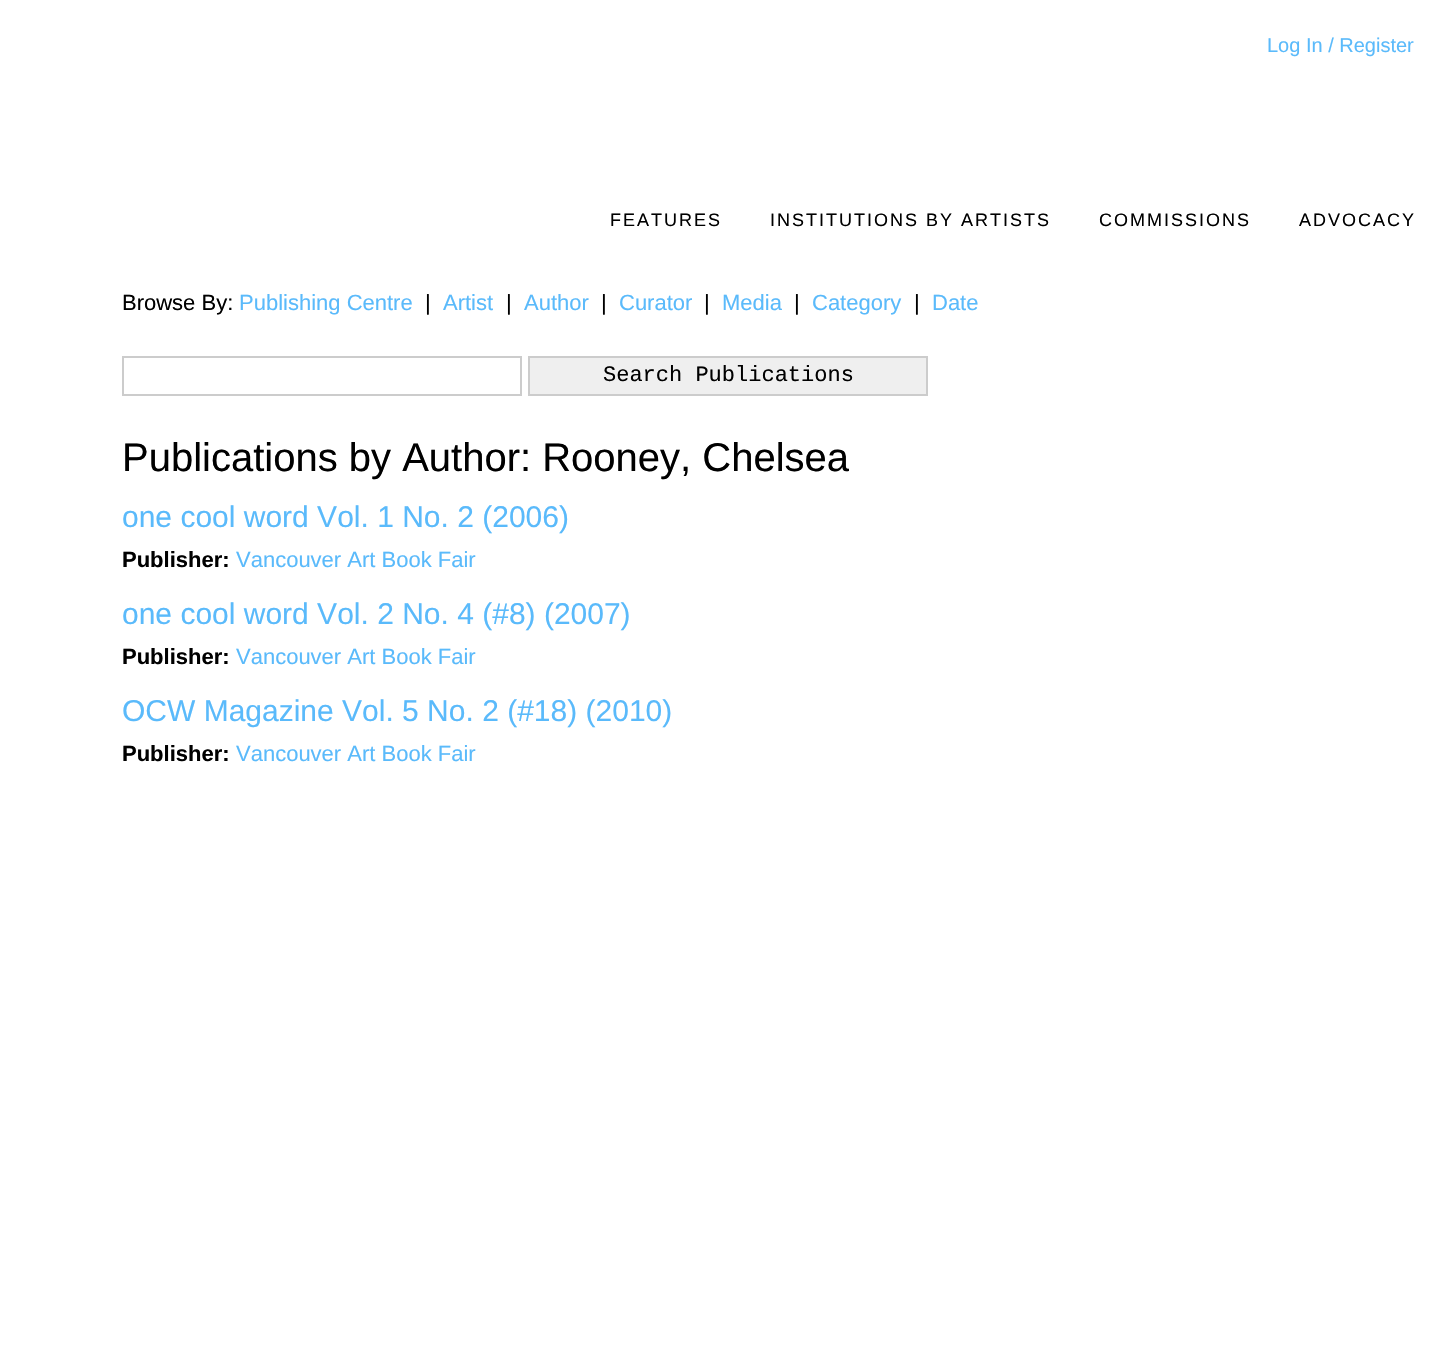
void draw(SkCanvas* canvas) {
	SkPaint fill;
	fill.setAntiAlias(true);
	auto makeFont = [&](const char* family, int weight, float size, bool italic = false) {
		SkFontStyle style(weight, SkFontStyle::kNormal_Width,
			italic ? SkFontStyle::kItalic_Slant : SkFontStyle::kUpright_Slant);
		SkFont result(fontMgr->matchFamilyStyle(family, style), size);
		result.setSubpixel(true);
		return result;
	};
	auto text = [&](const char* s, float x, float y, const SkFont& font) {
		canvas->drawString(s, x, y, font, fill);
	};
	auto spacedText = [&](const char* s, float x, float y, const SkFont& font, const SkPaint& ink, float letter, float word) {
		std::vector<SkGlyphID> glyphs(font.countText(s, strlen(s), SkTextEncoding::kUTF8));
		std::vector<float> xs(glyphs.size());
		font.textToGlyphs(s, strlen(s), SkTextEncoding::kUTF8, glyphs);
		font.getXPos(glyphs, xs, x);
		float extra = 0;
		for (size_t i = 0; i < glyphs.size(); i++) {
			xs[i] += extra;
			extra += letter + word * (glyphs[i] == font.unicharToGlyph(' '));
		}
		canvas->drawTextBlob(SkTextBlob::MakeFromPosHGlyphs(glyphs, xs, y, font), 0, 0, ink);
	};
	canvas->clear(0xFFFFFFFF);
	fill.setStyle(SkPaint::kStroke_Style);
	fill.setStrokeWidth(2);
	fill.setColor(0xFFCCCCCC);
	canvas->drawRect(SkRect::MakeLTRB(123, 357, 521, 395), fill);
	fill.setStyle(SkPaint::kFill_Style);
	fill.setColor(0xFFEFEFEF);
	canvas->drawRect(SkRect::MakeLTRB(529, 357, 927, 395), fill);
	fill.setStyle(SkPaint::kStroke_Style);
	fill.setColor(0xFFCCCCCC);
	canvas->drawRect(SkRect::MakeLTRB(529, 357, 927, 395), fill);
	auto font1 = makeFont("Liberation Sans", 400, 20);
	fill.setStyle(SkPaint::kFill_Style);
	fill.setColor(0xFF5ABAFB);
	text("Log In / Register", 1267, 52, font1);
	auto font2 = makeFont("Liberation Sans", 400, 18);
	fill.setColor(0xFF000000);
	spacedText("FEATURES", 610, 226, font2, fill, 2, 0);
	spacedText("INSTITUTIONS BY ARTISTS", 770, 226, font2, fill, 2, 0);
	spacedText("COMMISSIONS", 1099, 226, font2, fill, 2, 0);
	spacedText("ADVOCACY", 1299, 226, font2, fill, 2, 0);
	auto font3 = makeFont("Liberation Sans", 400, 22);
	text("Browse By:", 122, 310, font3);
	fill.setColor(0xFF5ABAFB);
	text("Publishing Centre", 239, 310, font3);
	fill.setColor(0xFF000000);
	text("|", 425, 310, font3);
	fill.setColor(0xFF5ABAFB);
	text("Artist", 443, 310, font3);
	fill.setColor(0xFF000000);
	text("|", 506, 310, font3);
	fill.setColor(0xFF5ABAFB);
	text("Author", 524, 310, font3);
	fill.setColor(0xFF000000);
	text("|", 601, 310, font3);
	fill.setColor(0xFF5ABAFB);
	text("Curator", 619, 310, font3);
	fill.setColor(0xFF000000);
	text("|", 704, 310, font3);
	fill.setColor(0xFF5ABAFB);
	text("Media", 722, 310, font3);
	fill.setColor(0xFF000000);
	text("|", 794, 310, font3);
	fill.setColor(0xFF5ABAFB);
	text("Category", 812, 310, font3);
	fill.setColor(0xFF000000);
	text("|", 914, 310, font3);
	fill.setColor(0xFF5ABAFB);
	text("Date", 932, 310, font3);
	auto font4 = makeFont("Liberation Mono", 400, 22);
	fill.setColor(0xFF000000);
	text("Search Publications", 603, 381, font4);
	auto font5 = makeFont("Liberation Sans", 400, 40);
	text("Publications by Author: Rooney, Chelsea", 122, 471, font5);
	auto font6 = makeFont("Liberation Sans", 400, 30);
	fill.setColor(0xFF5ABAFB);
	text("one cool word Vol. 1 No. 2 (2006)", 122, 527, font6);
	auto font7 = makeFont("Liberation Sans", 700, 22);
	fill.setColor(0xFF000000);
	text("Publisher:", 122, 567, font7);
	fill.setColor(0xFF5ABAFB);
	text("Vancouver Art Book Fair", 236, 567, font3);
	text("one cool word Vol. 2 No. 4 (#8) (2007)", 122, 624, font6);
	fill.setColor(0xFF000000);
	text("Publisher:", 122, 664, font7);
	fill.setColor(0xFF5ABAFB);
	text("Vancouver Art Book Fair", 236, 664, font3);
	text("OCW Magazine Vol. 5 No. 2 (#18) (2010)", 122, 721, font6);
	fill.setColor(0xFF000000);
	text("Publisher:", 122, 761, font7);
	fill.setColor(0xFF5ABAFB);
	text("Vancouver Art Book Fair", 236, 761, font3);
}
